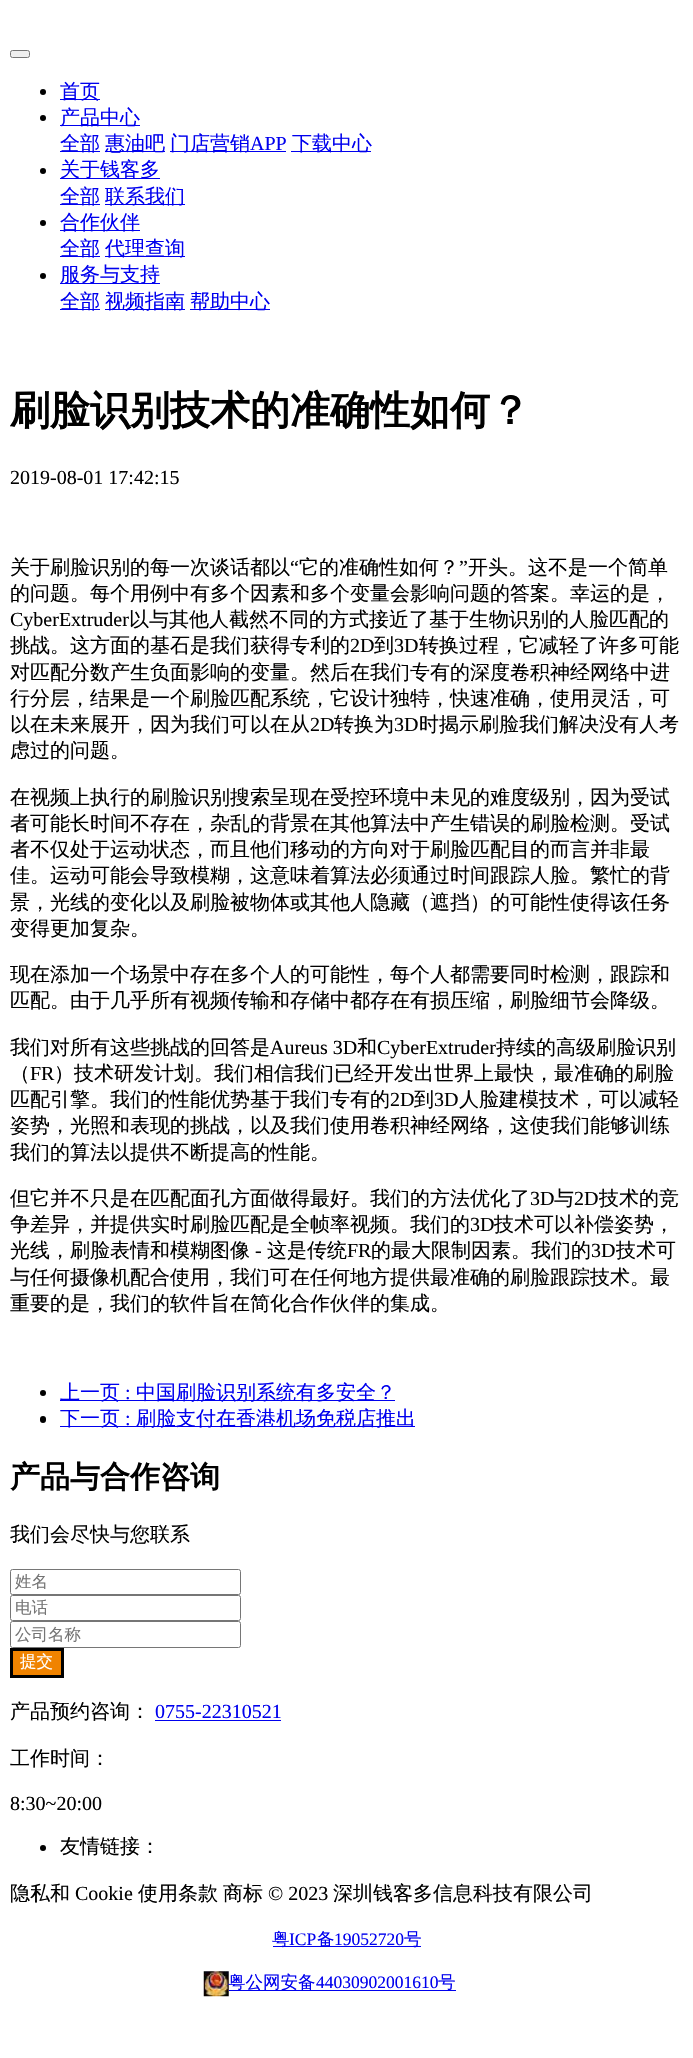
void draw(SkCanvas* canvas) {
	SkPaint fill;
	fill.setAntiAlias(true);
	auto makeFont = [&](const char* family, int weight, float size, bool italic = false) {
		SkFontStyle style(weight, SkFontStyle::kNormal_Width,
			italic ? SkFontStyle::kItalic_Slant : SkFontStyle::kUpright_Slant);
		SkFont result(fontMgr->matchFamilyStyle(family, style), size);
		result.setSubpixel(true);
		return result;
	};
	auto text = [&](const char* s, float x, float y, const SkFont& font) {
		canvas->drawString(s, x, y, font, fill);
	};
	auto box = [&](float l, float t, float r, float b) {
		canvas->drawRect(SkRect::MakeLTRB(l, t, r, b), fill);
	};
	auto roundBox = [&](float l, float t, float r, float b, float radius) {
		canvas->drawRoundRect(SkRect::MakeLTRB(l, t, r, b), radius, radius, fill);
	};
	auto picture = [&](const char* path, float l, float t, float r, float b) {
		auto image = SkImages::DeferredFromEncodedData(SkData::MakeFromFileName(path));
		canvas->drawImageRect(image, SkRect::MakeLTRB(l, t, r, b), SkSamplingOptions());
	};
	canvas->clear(0xFFFFFFFF);
	fill.setColor(0xFFEFEFEF);
	canvas->drawRoundRect(SkRect::MakeLTRB(10.5f, 50.5f, 29.5f, 57.5f), 2, 2, fill);
	fill.setStyle(SkPaint::kStroke_Style);
	fill.setStrokeWidth(1);
	fill.setColor(0xFF767676);
	canvas->drawRoundRect(SkRect::MakeLTRB(10.5f, 50.5f, 29.5f, 57.5f), 2, 2, fill);
	fill.setStyle(SkPaint::kFill_Style);
	fill.setColor(0xFF000000);
	canvas->drawCircle(43, 92, 3, fill);
	fill.setColor(0xFF0000EE);
	box(60, 99, 100, 100);
	fill.setColor(0xFF000000);
	canvas->drawCircle(43, 118, 3, fill);
	fill.setColor(0xFF0000EE);
	box(60, 125, 140, 126);
	box(60, 151, 100, 152);
	box(105, 151, 165, 152);
	box(170, 151, 286, 152);
	box(291, 151, 371, 152);
	fill.setColor(0xFF000000);
	canvas->drawCircle(43, 171, 3, fill);
	fill.setColor(0xFF0000EE);
	box(60, 178, 160, 179);
	box(60, 204, 100, 205);
	box(105, 204, 185, 205);
	fill.setColor(0xFF000000);
	canvas->drawCircle(43, 223, 3, fill);
	fill.setColor(0xFF0000EE);
	box(60, 230, 140, 231);
	box(60, 256, 100, 257);
	box(105, 256, 185, 257);
	fill.setColor(0xFF000000);
	canvas->drawCircle(43, 276, 3, fill);
	fill.setColor(0xFF0000EE);
	box(60, 283, 160, 284);
	box(60, 309, 100, 310);
	box(105, 309, 185, 310);
	box(190, 309, 270, 310);
	fill.setColor(0xFF000000);
	canvas->drawCircle(43, 1393, 3, fill);
	fill.setColor(0xFF0000EE);
	box(60, 1400, 395, 1401);
	fill.setColor(0xFF000000);
	roundBox(40, 1416, 46, 1423, 3);
	fill.setColor(0xFF0000EE);
	box(60, 1426, 415, 1427);
	fill.setStyle(SkPaint::kStroke_Style);
	fill.setColor(0xFF767676);
	canvas->drawRoundRect(SkRect::MakeLTRB(10.5f, 1569.5f, 240.5f, 1594.5f), 2, 2, fill);
	canvas->drawRoundRect(SkRect::MakeLTRB(10.5f, 1595.5f, 240.5f, 1620.5f), 2, 2, fill);
	canvas->drawRoundRect(SkRect::MakeLTRB(10.5f, 1621.5f, 240.5f, 1647.5f), 2, 2, fill);
	fill.setStyle(SkPaint::kFill_Style);
	fill.setColor(0xFFF08300);
	canvas->drawRect(SkRect::MakeLTRB(11.5f, 1649.5f, 62.5f, 1676.5f), fill);
	fill.setStyle(SkPaint::kStroke_Style);
	fill.setStrokeWidth(3);
	fill.setColor(0xFF000000);
	canvas->drawRect(SkRect::MakeLTRB(11.5f, 1649.5f, 62.5f, 1676.5f), fill);
	fill.setStyle(SkPaint::kFill_Style);
	fill.setColor(0xFF0000EE);
	box(155, 1720, 281, 1721);
	fill.setColor(0xFF000000);
	canvas->drawCircle(43, 1848, 3, fill);
	fill.setColor(0xFF0000EE);
	box(273, 1946, 421, 1947);
	picture("image0.png", 203, 1971, 229, 1997);
	box(229, 1990, 456, 1991);
	auto font1 = makeFont("WenQuanYi Zen Hei", 500, 20);
	text("首页", 60, 98, font1);
	text("产品中心", 60, 124, font1);
	text("全部", 60, 150, font1);
	text("惠油吧", 105, 150, font1);
	text("门店营销", 170, 150, font1);
	auto font2 = makeFont("Liberation Serif", 400, 20);
	text("APP", 250, 150, font2);
	text("下载中心", 292, 150, font1);
	text("关于钱客多", 60, 176, font1);
	text("全部", 60, 203, font1);
	text("联系我们", 105, 203, font1);
	text("合作伙伴", 60, 229, font1);
	text("全部", 60, 255, font1);
	text("代理查询", 105, 255, font1);
	text("服务与支持", 60, 281, font1);
	text("全部", 60, 308, font1);
	text("视频指南", 105, 308, font1);
	text("帮助中心", 190, 308, font1);
	auto font3 = makeFont("WenQuanYi Zen Hei", 700, 40);
	fill.setColor(0xFF000000);
	text("刷脸识别技术的准确性如何？", 10, 424, font3);
	text("2019-08-01 17:42:15", 10, 484, font2);
	text("关于刷脸识别的每一次谈话都以", 10, 574, font1);
	text("“", 290, 574, font2);
	text("它的准确性如何？", 299, 574, font1);
	text("”", 459, 574, font2);
	text("开头。这不是一个简单", 468, 574, font1);
	text("的问题。每个用例中有多个因素和多个变量会影响问题的答案。幸运的是，", 10, 600, font1);
	text("CyberExtruder", 10, 626, font2);
	text("以与其他人截然不同的方式接近了基于生物识别的人脸匹配的", 129, 626, font1);
	text("挑战。这方面的基石是我们获得专利的", 10, 652, font1);
	text("2D", 350, 652, font2);
	text("到", 374, 652, font1);
	text("3D", 394, 652, font2);
	text("转换过程，它减轻了许多可能", 419, 652, font1);
	text("对匹配分数产生负面影响的变量。然后在我们专有的深度卷积神经网络中进", 10, 679, font1);
	text("行分层，结果是一个刷脸匹配系统，它设计独特，快速准确，使用灵活，可", 10, 705, font1);
	text("以在未来展开，因为我们可以在从", 10, 731, font1);
	text("2D", 310, 731, font2);
	text("转换为", 334, 731, font1);
	text("3D", 394, 731, font2);
	text("时揭示刷脸我们解决没有人考", 419, 731, font1);
	text("虑过的问题。", 10, 757, font1);
	text("在视频上执行的刷脸识别搜索呈现在受控环境中未见的难度级别，因为受试", 10, 804, font1);
	text("者可能长时间不存在，杂乱的背景在其他算法中产生错误的刷脸检测。受试", 10, 830, font1);
	text("者不仅处于运动状态，而且他们移动的方向对于刷脸匹配目的而言并非最", 10, 856, font1);
	text("佳。运动可能会导致模糊，这意味着算法必须通过时间跟踪人脸。繁忙的背", 10, 882, font1);
	text("景，光线的变化以及刷脸被物体或其他人隐藏（遮挡）的可能性使得该任务", 10, 909, font1);
	text("变得更加复杂。", 10, 935, font1);
	text("现在添加一个场景中存在多个人的可能性，每个人都需要同时检测，跟踪和", 10, 981, font1);
	text("匹配。由于几乎所有视频传输和存储中都存在有损压缩，刷脸细节会降级。", 10, 1007, font1);
	text("我们对所有这些挑战的回答是", 10, 1054, font1);
	text("Aureus 3D", 270, 1054, font2);
	text("和", 357, 1054, font1);
	text("CyberExtruder", 377, 1054, font2);
	text("持续的高级刷脸识别", 496, 1054, font1);
	text("（", 10, 1080, font1);
	text("FR", 30, 1080, font2);
	text("）技术研发计划。我们相信我们已经开发出世界上最快，最准确的刷脸", 54, 1080, font1);
	text("匹配引擎。我们的性能优势基于我们专有的", 10, 1106, font1);
	text("2D", 390, 1106, font2);
	text("到", 414, 1106, font1);
	text("3D", 434, 1106, font2);
	text("人脸建模技术，可以减轻", 459, 1106, font1);
	text("姿势，光照和表现的挑战，以及我们使用卷积神经网络，这使我们能够训练", 10, 1132, font1);
	text("我们的算法以提供不断提高的性能。", 10, 1159, font1);
	text("但它并不只是在匹配面孔方面做得最好。我们的方法优化了", 10, 1205, font1);
	text("3D", 530, 1205, font2);
	text("与", 554, 1205, font1);
	text("2D", 574, 1205, font2);
	text("技术的竞", 599, 1205, font1);
	text("争差异，并提供实时刷脸匹配是全帧率视频。我们的", 10, 1231, font1);
	text("3D", 470, 1231, font2);
	text("技术可以补偿姿势，", 494, 1231, font1);
	text("光线，刷脸表情和模糊图像", 10, 1257, font1);
	text("-", 255, 1257, font2);
	text("这是传统", 267, 1257, font1);
	text("FR", 347, 1257, font2);
	text("的最大限制因素。我们的", 371, 1257, font1);
	text("3D", 591, 1257, font2);
	text("技术可", 616, 1257, font1);
	text("与任何摄像机配合使用，我们可在任何地方提供最准确的刷脸跟踪技术。最", 10, 1284, font1);
	text("重要的是，我们的软件旨在简化合作伙伴的集成。", 10, 1310, font1);
	fill.setColor(0xFF0000EE);
	text("上一页", 60, 1399, font1);
	text(":", 125, 1399, font2);
	text("中国刷脸识别系统有多安全？", 136, 1399, font1);
	text("下一页", 60, 1425, font1);
	text(":", 125, 1425, font2);
	text("刷脸支付在香港机场免税店推出", 136, 1425, font1);
	auto font4 = makeFont("WenQuanYi Zen Hei", 700, 30);
	fill.setColor(0xFF000000);
	text("产品与合作咨询", 10, 1487, font4);
	text("我们会尽快与您联系", 10, 1541, font1);
	auto font5 = makeFont("WenQuanYi Zen Hei", 500, 16.5f);
	fill.setColor(0xFF757575);
	text("姓名", 15, 1587, font5);
	text("电话", 15, 1613, font5);
	text("公司名称", 15, 1640, font5);
	fill.setColor(0xFFFFFFFF);
	text("提交", 20, 1667, font5);
	fill.setColor(0xFF000000);
	text("产品预约咨询：", 10, 1718, font1);
	fill.setColor(0xFF0000EE);
	text("0755-22310521", 155, 1718, font2);
	fill.setColor(0xFF000000);
	text("工作时间：", 10, 1765, font1);
	text("8:30~20:00", 10, 1810, font2);
	text("友情链接：", 60, 1853, font1);
	text("隐私和", 10, 1900, font1);
	text("Cookie", 75, 1900, font2);
	text("使用条款", 138, 1900, font1);
	text("商标", 223, 1900, font1);
	text("© 2023", 268, 1900, font2);
	text("深圳钱客多信息科技有限公司", 333, 1900, font1);
	auto font6 = makeFont("WenQuanYi Zen Hei", 500, 17.5f);
	fill.setColor(0xFF0000EE);
	text("粤", 272, 1945, font6);
	auto font7 = makeFont("Liberation Serif", 400, 17.5f);
	text("ICP", 289, 1945, font7);
	text("备", 317, 1945, font6);
	text("19052720", 334, 1945, font7);
	text("号", 404, 1945, font6);
	text("粤公网安备", 228, 1988, font6);
	text("44030902001610", 316, 1988, font7);
	text("号", 438, 1988, font6);
}
